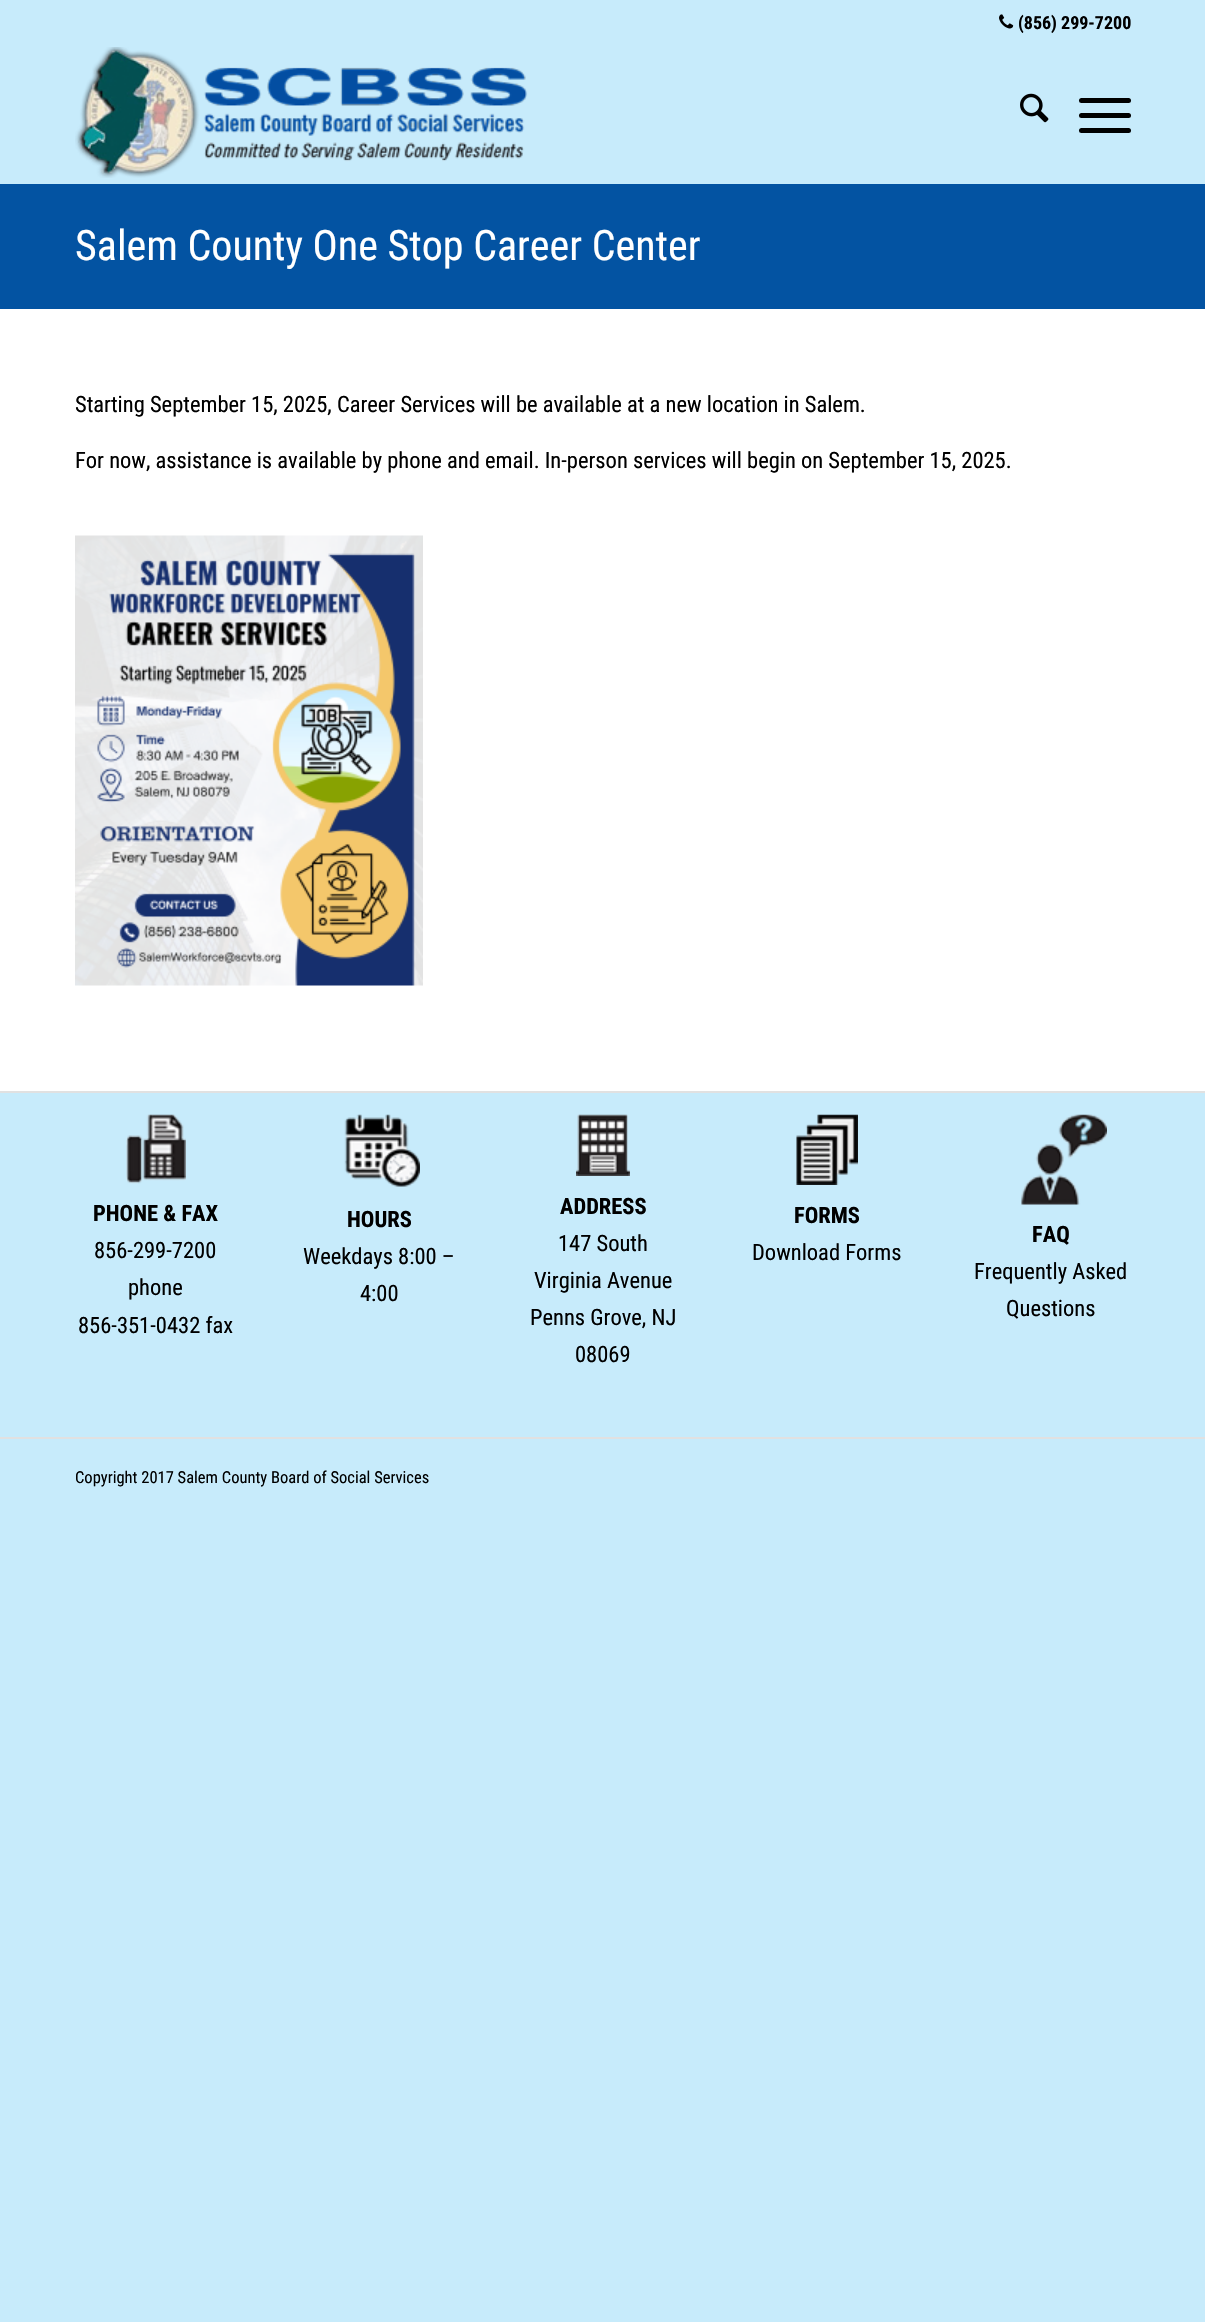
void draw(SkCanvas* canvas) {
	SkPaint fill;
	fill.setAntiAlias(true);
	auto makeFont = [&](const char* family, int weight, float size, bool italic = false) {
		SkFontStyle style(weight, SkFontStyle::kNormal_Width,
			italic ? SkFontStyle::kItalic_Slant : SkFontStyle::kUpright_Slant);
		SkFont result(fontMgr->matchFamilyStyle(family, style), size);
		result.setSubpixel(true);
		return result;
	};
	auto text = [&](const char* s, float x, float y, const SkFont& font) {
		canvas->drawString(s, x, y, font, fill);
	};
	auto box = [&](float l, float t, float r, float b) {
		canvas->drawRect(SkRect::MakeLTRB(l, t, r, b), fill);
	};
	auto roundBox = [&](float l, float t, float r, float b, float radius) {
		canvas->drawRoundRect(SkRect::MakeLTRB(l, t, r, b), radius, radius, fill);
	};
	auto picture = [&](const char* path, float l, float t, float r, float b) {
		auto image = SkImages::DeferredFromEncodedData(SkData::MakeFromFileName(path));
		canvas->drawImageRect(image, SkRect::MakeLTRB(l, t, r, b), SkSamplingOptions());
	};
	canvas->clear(0xFFC7EBFB);
	picture("image0.png", 999, 14, 1014, 29);
	picture("image1.png", 75, 47, 528, 178);
	picture("image2.png", 1020, 93, 1049, 123);
	fill.setColor(0xFF000000);
	roundBox(1079, 113, 1131, 118, 2.5f);
	roundBox(1079, 98, 1131, 103, 2.5f);
	roundBox(1079, 128, 1131, 133, 2.5f);
	fill.setColor(0xFF0353A2);
	box(0, 184, 1205, 309);
	fill.setColor(0xFFFFFFFF);
	box(0, 309, 1205, 1091);
	picture("image3.png", 75, 535, 423, 986);
	fill.setColor(0xFFE1E1E1);
	box(0, 1091, 1205, 1093);
	picture("image4.png", 126, 1114, 186, 1184);
	picture("image5.png", 344, 1114, 420, 1187);
	picture("image6.png", 576, 1114, 630, 1176);
	picture("image7.png", 796, 1114, 858, 1185);
	picture("image8.png", 1021, 1114, 1107, 1205);
	box(0, 1437, 1205, 1439);
	auto font1 = makeFont("Roboto Condensed", 700, 18);
	fill.setColor(0xFF000000);
	text("(856) 299-7200", 1018, 29, font1);
	auto font2 = makeFont("Roboto Condensed", 400, 42);
	fill.setColor(0xFFFFFFFF);
	text("Salem County One Stop Career Center", 75, 260, font2);
	auto font3 = makeFont("Roboto Condensed", 400, 22.5f);
	fill.setColor(0xFF000000);
	text("Starting September 15, 2025, Career Services will be available at a new location in Salem.", 75, 412, font3);
	text("For now, assistance is available by phone and email. In-person services will begin on September 15, 2025.", 75, 468, font3);
	auto font4 = makeFont("Roboto Condensed", 700, 22.5f);
	text("PHONE & FAX", 93, 1221, font4);
	text("856-299-7200", 94, 1258, font3);
	text("phone", 128, 1295, font3);
	text("856-351-0432 fax", 78, 1333, font3);
	text("HOURS", 347, 1227, font4);
	text("Weekdays 8:00 –", 303, 1264, font3);
	text("4:00", 360, 1301, font3);
	text("ADDRESS", 560, 1214, font4);
	text("147 South", 558, 1251, font3);
	text("Virginia Avenue", 534, 1288, font3);
	text("Penns Grove, NJ", 530, 1325, font3);
	text("08069", 575, 1362, font3);
	text("FORMS", 794, 1223, font4);
	text("Download Forms", 752, 1260, font3);
	text("FAQ", 1032, 1242, font4);
	text("Frequently Asked", 974, 1279, font3);
	text("Questions", 1006, 1316, font3);
	auto font5 = makeFont("Roboto Condensed", 400, 16.5f);
	text("Copyright 2017 Salem County Board of Social Services", 75, 1483, font5);
}
